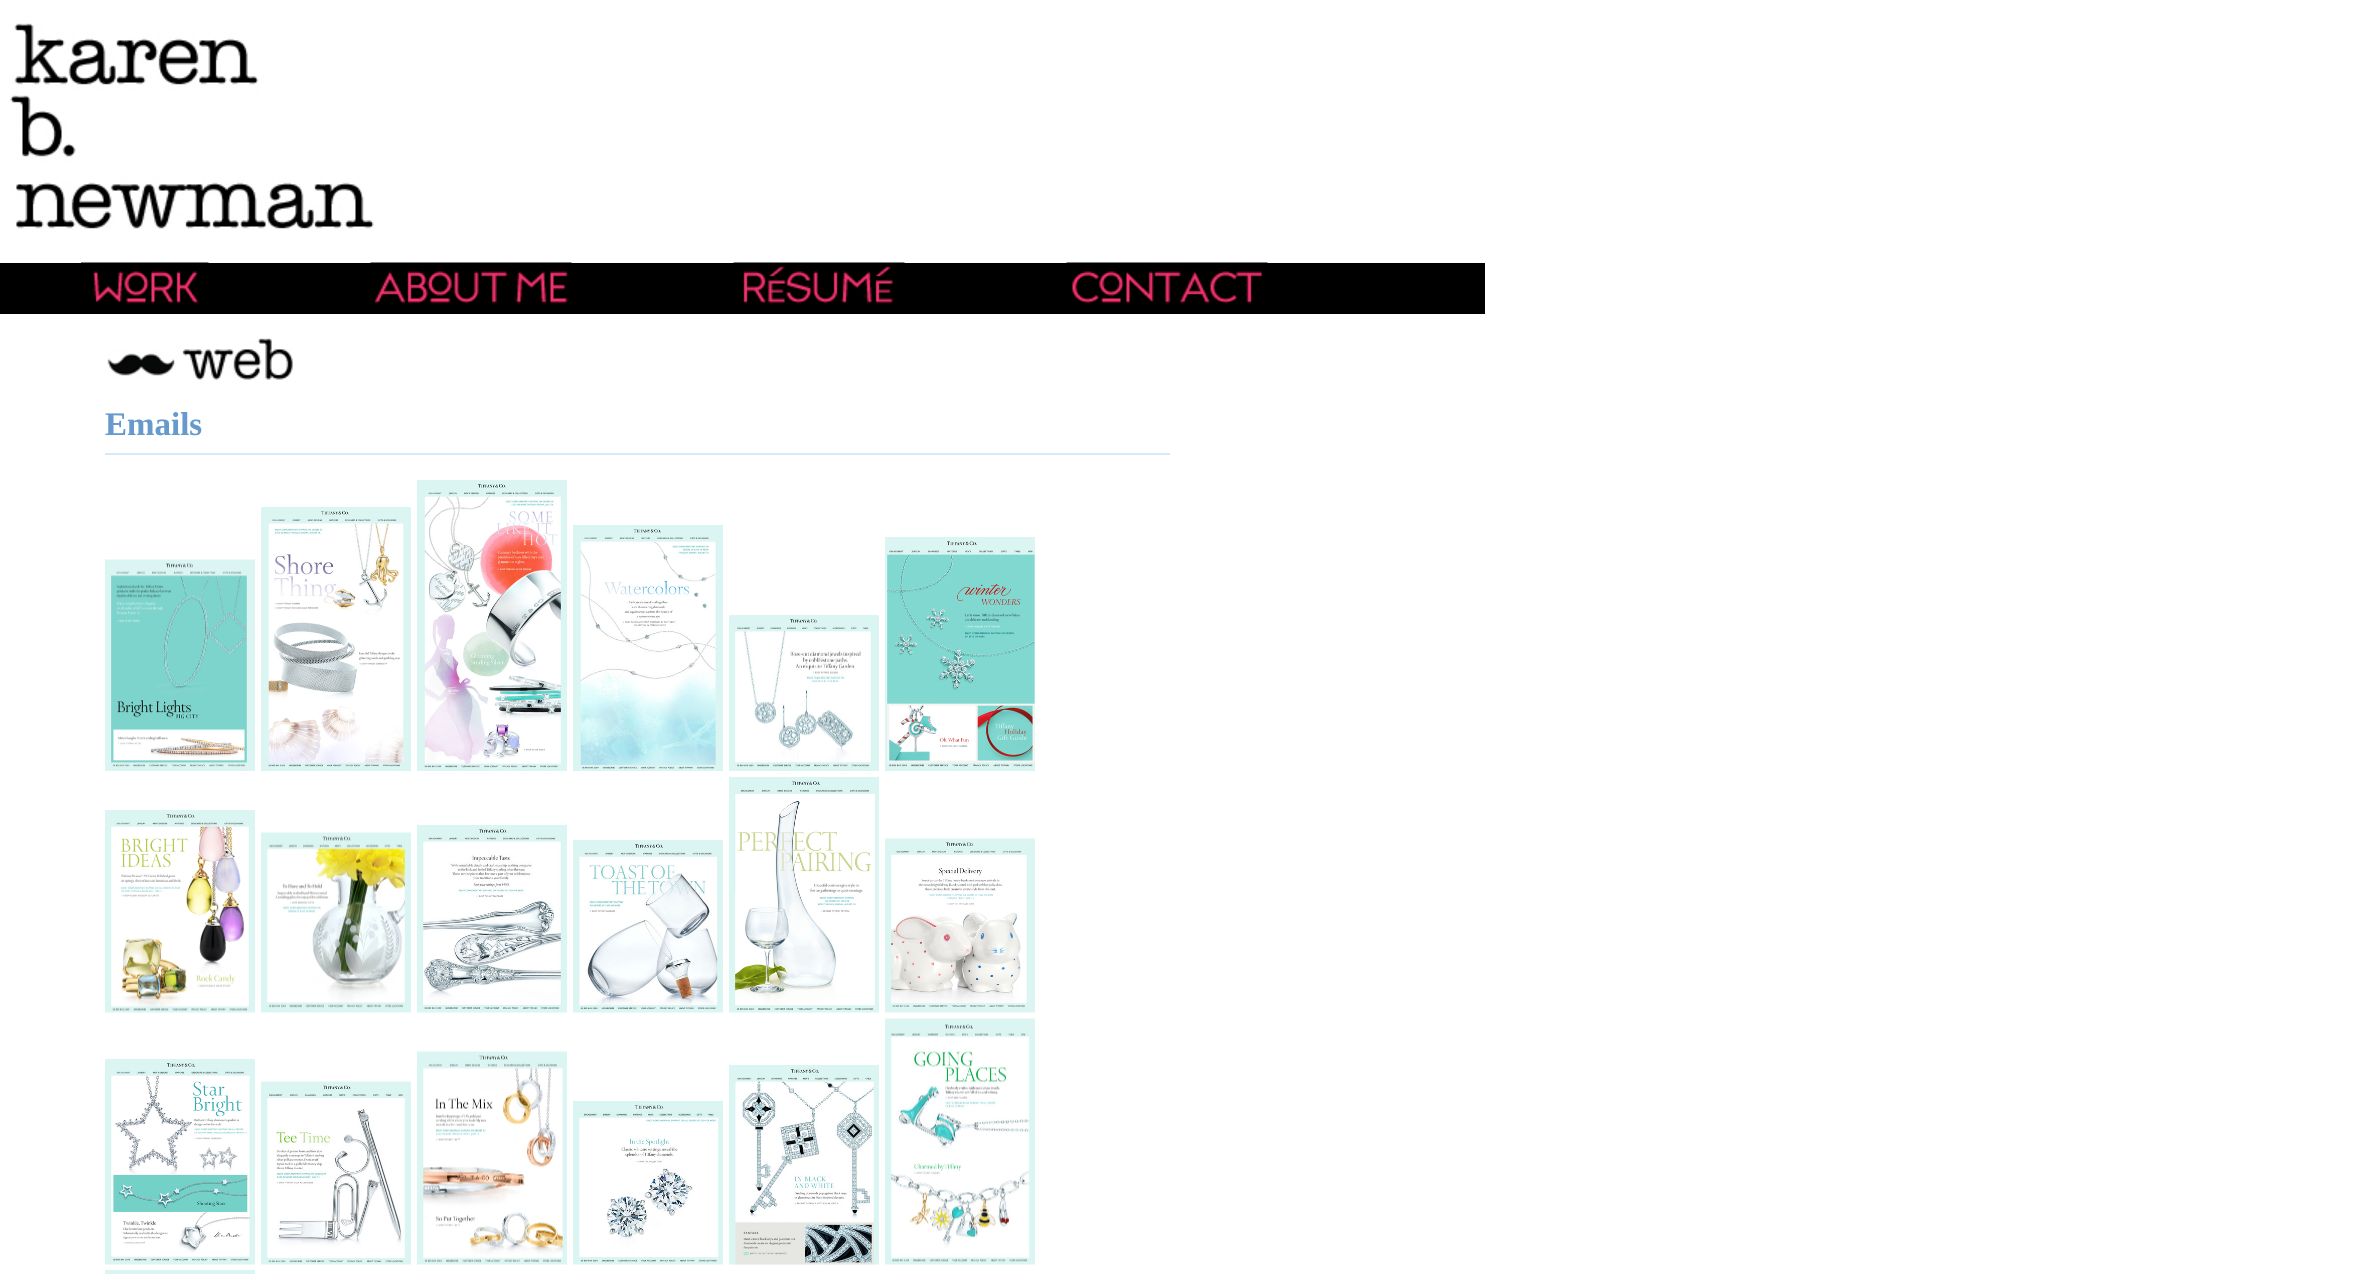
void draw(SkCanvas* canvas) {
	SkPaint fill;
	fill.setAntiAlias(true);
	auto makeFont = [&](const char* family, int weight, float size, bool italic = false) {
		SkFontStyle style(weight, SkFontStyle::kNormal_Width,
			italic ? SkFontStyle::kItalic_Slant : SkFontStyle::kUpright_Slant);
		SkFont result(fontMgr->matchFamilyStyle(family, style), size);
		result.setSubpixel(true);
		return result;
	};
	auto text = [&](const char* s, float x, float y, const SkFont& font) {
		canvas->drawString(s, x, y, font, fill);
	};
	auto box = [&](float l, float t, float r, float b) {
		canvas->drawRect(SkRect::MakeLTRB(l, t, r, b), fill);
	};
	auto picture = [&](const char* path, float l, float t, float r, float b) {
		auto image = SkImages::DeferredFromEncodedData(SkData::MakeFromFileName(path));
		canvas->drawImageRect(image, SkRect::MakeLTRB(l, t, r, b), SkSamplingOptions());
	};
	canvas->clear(0xFFFFFFFF);
	picture("image0.png", 10, 23, 374, 229);
	fill.setColor(0xFF000000);
	box(0, 263, 1485, 314);
	picture("image1.png", 81, 262, 209, 304);
	picture("image2.png", 370, 262, 572, 304);
	picture("image3.png", 733, 262, 905, 304);
	picture("image4.png", 1066, 262, 1268, 304);
	picture("image5.png", 107, 338, 293, 380);
	fill.setColor(0xFFD8E8F5);
	box(105, 453, 1170, 455);
	picture("image6.png", 105, 559, 255, 771);
	picture("image7.png", 261, 507, 411, 771);
	picture("image8.png", 417, 480, 567, 771);
	picture("image9.png", 573, 525, 723, 771);
	picture("image10.png", 729, 615, 879, 771);
	picture("image11.png", 885, 537, 1035, 771);
	picture("image12.png", 105, 810, 255, 1013);
	picture("image13.png", 261, 832, 411, 1013);
	picture("image14.png", 417, 825, 567, 1013);
	picture("image15.png", 573, 840, 723, 1013);
	picture("image16.png", 729, 777, 879, 1013);
	picture("image17.png", 885, 838, 1035, 1013);
	picture("image18.png", 105, 1059, 255, 1265);
	picture("image19.png", 261, 1081, 411, 1265);
	picture("image20.png", 417, 1051, 567, 1265);
	picture("image21.png", 573, 1101, 723, 1265);
	picture("image22.png", 729, 1065, 879, 1265);
	picture("image23.png", 885, 1018, 1035, 1265);
	fill.setColor(0xFFDBF5F2);
	box(105, 1270, 255, 1274);
	auto font1 = makeFont("Liberation Serif", 700, 33);
	fill.setColor(0xFF6699CC);
	text("Emails", 105, 435, font1);
}
